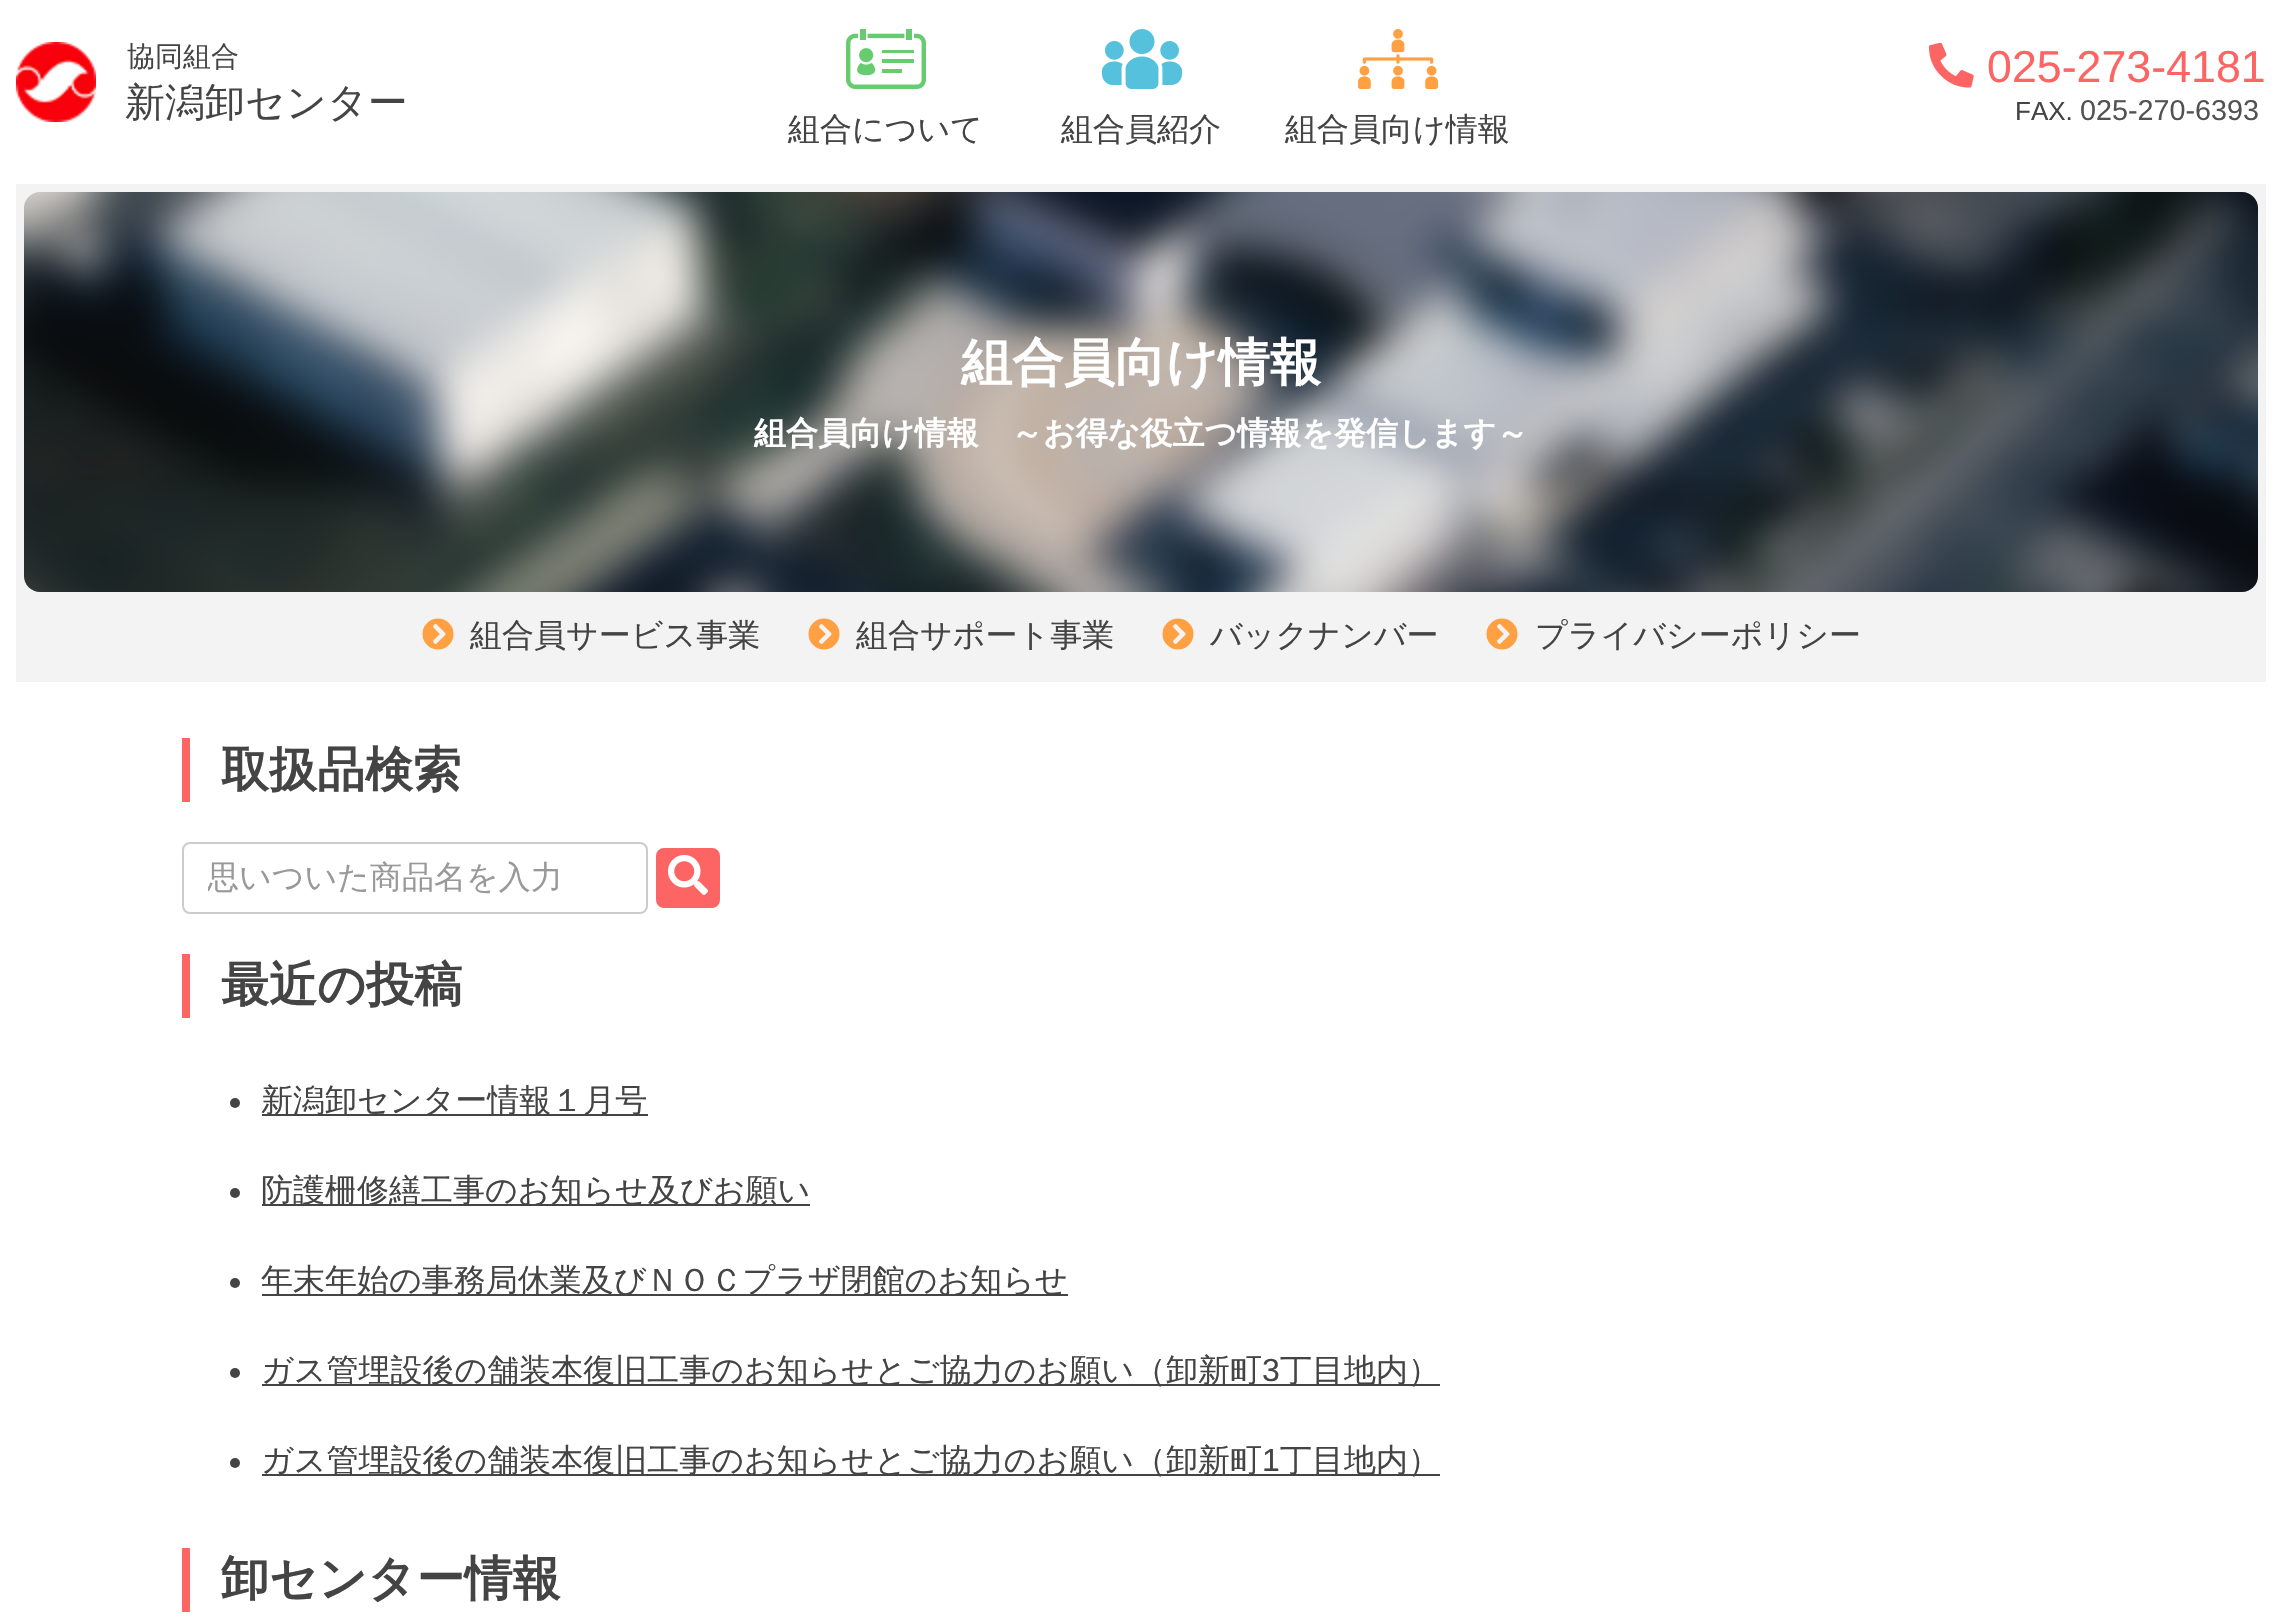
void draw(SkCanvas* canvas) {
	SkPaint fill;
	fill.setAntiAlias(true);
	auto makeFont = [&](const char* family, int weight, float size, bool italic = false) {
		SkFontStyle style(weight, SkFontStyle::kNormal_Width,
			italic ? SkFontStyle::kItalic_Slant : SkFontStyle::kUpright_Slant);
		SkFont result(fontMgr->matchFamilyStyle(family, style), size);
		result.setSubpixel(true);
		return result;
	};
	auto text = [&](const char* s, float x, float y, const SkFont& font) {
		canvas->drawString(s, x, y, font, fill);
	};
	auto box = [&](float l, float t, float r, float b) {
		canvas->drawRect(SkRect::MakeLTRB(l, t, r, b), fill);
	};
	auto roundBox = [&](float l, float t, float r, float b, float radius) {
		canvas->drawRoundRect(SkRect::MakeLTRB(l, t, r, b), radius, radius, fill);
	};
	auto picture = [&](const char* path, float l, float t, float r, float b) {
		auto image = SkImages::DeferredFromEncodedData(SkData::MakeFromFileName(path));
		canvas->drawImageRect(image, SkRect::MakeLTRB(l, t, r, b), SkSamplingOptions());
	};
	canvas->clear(0xFFFFFFFF);
	picture("image0.png", 16, 42, 405, 122);
	picture("image1.png", 1929, 42, 1974, 88);
	picture("image2.png", 846, 29, 926, 89);
	picture("image3.png", 1102, 29, 1182, 89);
	picture("image4.png", 1358, 29, 1438, 89);
	fill.setColor(0xFFF3F3F3);
	box(16, 184, 2266, 682);
	picture("image5.png", 24, 192, 2258, 592);
	picture("image6.png", 422, 618, 454, 650);
	picture("image6.png", 808, 618, 840, 650);
	picture("image6.png", 1162, 618, 1194, 650);
	picture("image6.png", 1486, 618, 1518, 650);
	fill.setColor(0xFFFD6565);
	box(182, 738, 190, 802);
	fill.setStyle(SkPaint::kStroke_Style);
	fill.setStrokeWidth(2);
	fill.setColor(0xFFCCCCCC);
	canvas->drawRoundRect(SkRect::MakeLTRB(183, 843, 647, 913), 7, 7, fill);
	fill.setStyle(SkPaint::kFill_Style);
	fill.setColor(0xFFFD6565);
	roundBox(656, 848, 720, 908, 8);
	picture("image7.png", 668, 855, 708, 895);
	box(182, 954, 190, 1018);
	fill.setColor(0xFF444444);
	canvas->drawCircle(235, 1103, 5, fill);
	box(262, 1114, 648, 1116);
	canvas->drawCircle(235, 1193, 5, fill);
	box(262, 1204, 810, 1206);
	canvas->drawCircle(235, 1283, 5, fill);
	box(262, 1294, 1068, 1296);
	canvas->drawCircle(235, 1373, 5, fill);
	box(262, 1384, 1440, 1386);
	canvas->drawCircle(235, 1463, 5, fill);
	box(262, 1474, 1440, 1476);
	fill.setColor(0xFFFD6565);
	box(182, 1548, 190, 1612);
	auto font1 = makeFont("Liberation Sans", 400, 44.75f);
	text("025-273-4181", 1987, 82, font1);
	auto font2 = makeFont("Liberation Sans", 400, 26);
	fill.setColor(0xFF444444);
	text("FAX.", 2015, 120, font2);
	auto font3 = makeFont("Liberation Sans", 400, 28.75f);
	fill.setColor(0xFF535353);
	text("025-270-6393", 2080, 120, font3);
	auto font4 = makeFont("WenQuanYi Zen Hei", 500, 32);
	fill.setColor(0xFF444444);
	text("組合について", 788, 140, font4);
	text("組合員紹介", 1061, 140, font4);
	text("組合員向け情報", 1285, 140, font4);
	auto font5 = makeFont("WenQuanYi Zen Hei", 700, 51.25f);
	fill.setColor(0xFFFFFFFF);
	text("組合員向け情報", 961, 380, font5);
	auto font6 = makeFont("WenQuanYi Zen Hei", 700, 32);
	text("組合員向け情報", 754, 444, font6);
	text("～お得な役立つ情報を発信します～", 1011, 444, font6);
	fill.setColor(0xFF444444);
	text("組合員サービス事業", 470, 646, font4);
	text("組合サポート事業", 856, 646, font4);
	text("バックナンバー", 1210, 646, font4);
	text("プライバシーポリシー", 1535, 646, font4);
	auto font7 = makeFont("WenQuanYi Zen Hei", 700, 48);
	text("取扱品検索", 221, 786, font7);
	canvas->save();
	canvas->clipRect(SkRect::MakeLTRB(208, 858, 622, 900));
	fill.setColor(0xFF999999);
	text("思いついた商品名を入力", 207, 888, font4);
	canvas->restore();
	fill.setColor(0xFF444444);
	text("最近の投稿", 221, 1001, font7);
	text("新潟卸センター情報１月号", 261, 1111, font4);
	text("防護柵修繕工事のお知らせ及びお願い", 261, 1201, font4);
	text("年末年始の事務局休業及びＮＯＣプラザ閉館のお知らせ", 261, 1291, font4);
	text("ガス管埋設後の舗装本復旧工事のお知らせとご協力のお願い（卸新町", 261, 1381, font4);
	auto font8 = makeFont("Liberation Sans", 400, 32);
	text("3", 1262, 1381, font8);
	text("丁目地内）", 1280, 1381, font4);
	text("ガス管埋設後の舗装本復旧工事のお知らせとご協力のお願い（卸新町", 261, 1471, font4);
	text("1", 1262, 1471, font8);
	text("丁目地内）", 1280, 1471, font4);
	text("卸センター情報", 221, 1595, font7);
}
